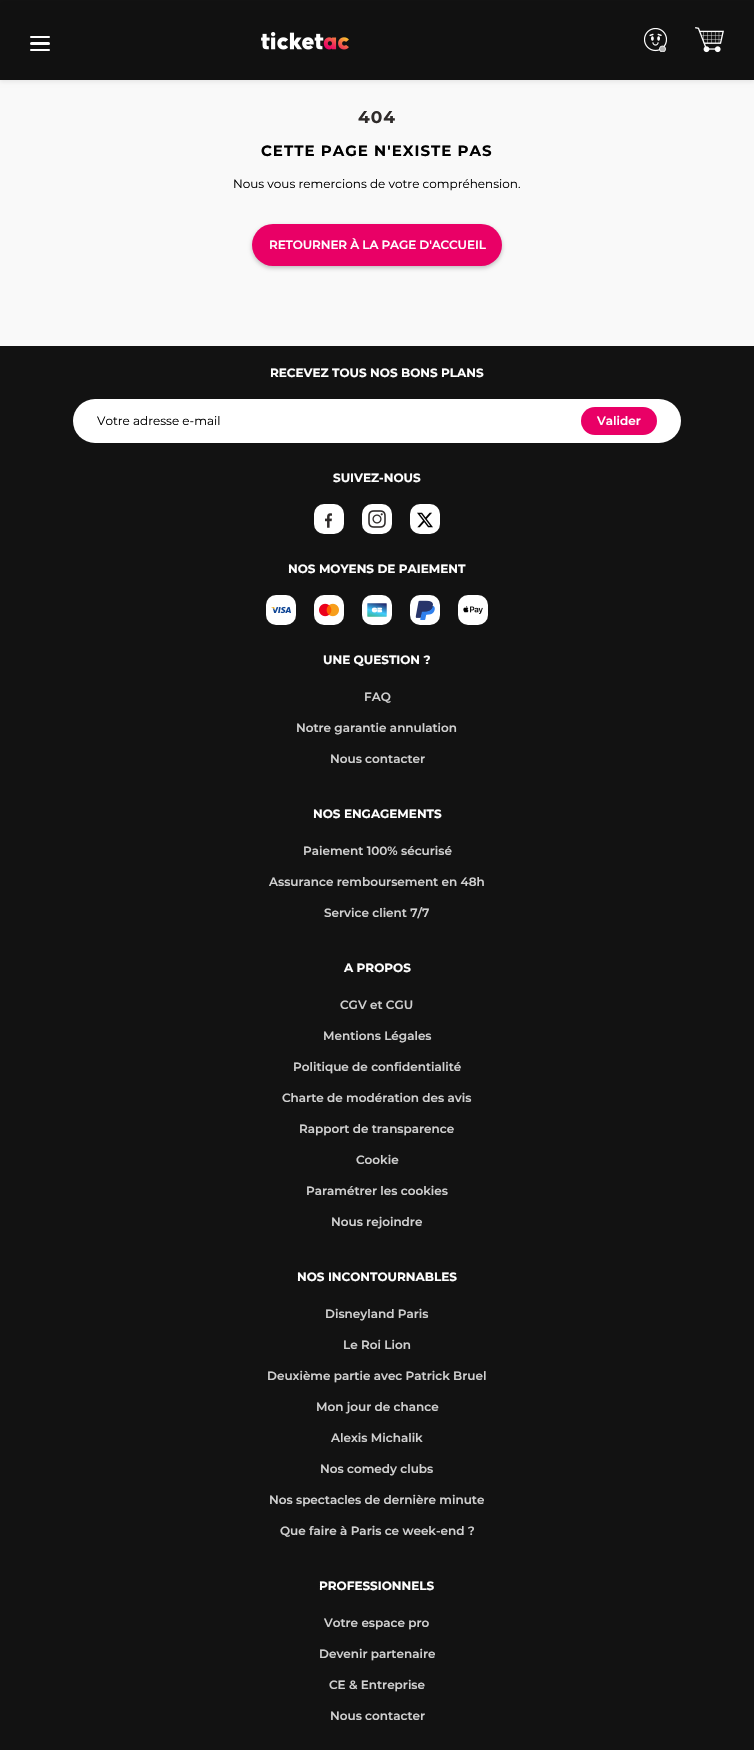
void draw(SkCanvas* canvas) {
	SkPaint fill;
	fill.setAntiAlias(true);
	auto makeFont = [&](const char* family, int weight, float size, bool italic = false) {
		SkFontStyle style(weight, SkFontStyle::kNormal_Width,
			italic ? SkFontStyle::kItalic_Slant : SkFontStyle::kUpright_Slant);
		SkFont result(fontMgr->matchFamilyStyle(family, style), size);
		result.setSubpixel(true);
		return result;
	};
	auto text = [&](const char* s, float x, float y, const SkFont& font) {
		canvas->drawString(s, x, y, font, fill);
	};
	auto spacedText = [&](const char* s, float x, float y, const SkFont& font, const SkPaint& ink, float letter, float word) {
		std::vector<SkGlyphID> glyphs(font.countText(s, strlen(s), SkTextEncoding::kUTF8));
		std::vector<float> xs(glyphs.size());
		font.textToGlyphs(s, strlen(s), SkTextEncoding::kUTF8, glyphs);
		font.getXPos(glyphs, xs, x);
		float extra = 0;
		for (size_t i = 0; i < glyphs.size(); i++) {
			xs[i] += extra;
			extra += letter + word * (glyphs[i] == font.unicharToGlyph(' '));
		}
		canvas->drawTextBlob(SkTextBlob::MakeFromPosHGlyphs(glyphs, xs, y, font), 0, 0, ink);
	};
	auto box = [&](float l, float t, float r, float b) {
		canvas->drawRect(SkRect::MakeLTRB(l, t, r, b), fill);
	};
	auto roundBox = [&](float l, float t, float r, float b, float radius) {
		canvas->drawRoundRect(SkRect::MakeLTRB(l, t, r, b), radius, radius, fill);
	};
	auto picture = [&](const char* path, float l, float t, float r, float b) {
		auto image = SkImages::DeferredFromEncodedData(SkData::MakeFromFileName(path));
		canvas->drawImageRect(image, SkRect::MakeLTRB(l, t, r, b), SkSamplingOptions());
	};
	canvas->clear(0xFF121212);
	fill.setColor(0xFFF9F9F9);
	box(0, 80, 754, 346);
	fill.setColor(0x12000000);
	fill.setMaskFilter(SkMaskFilter::MakeBlur(kNormal_SkBlurStyle, 2));
	canvas->drawRect(SkRect::MakeLTRB(0, 2, 754, 82), fill);
	fill.setMaskFilter(nullptr);
	fill.setColor(0xFFFFFFFF);
	roundBox(30, 36, 50, 38, 1);
	roundBox(30, 42, 50, 45, 1.5f);
	roundBox(30, 49, 50, 51, 1);
	picture("image0.png", 261, 32, 349, 50);
	picture("image1.png", 644, 28, 667, 52);
	picture("image2.png", 695, 27, 724, 53);
	fill.setColor(0x3D000000);
	fill.setMaskFilter(SkMaskFilter::MakeBlur(kNormal_SkBlurStyle, 2));
	canvas->drawRoundRect(SkRect::MakeLTRB(252, 226, 502, 268), 21, 21, fill);
	fill.setMaskFilter(nullptr);
	fill.setColor(0xFFE90066);
	roundBox(252, 224, 502, 266, 21);
	fill.setColor(0xFFFFFFFF);
	roundBox(73, 399, 681, 443, 22);
	fill.setColor(0xFFE90066);
	roundBox(581, 407, 657, 435, 14);
	fill.setColor(0xFFFFFFFF);
	roundBox(314, 504, 344, 534, 10);
	picture("image3.png", 325, 513, 332, 528);
	roundBox(362, 504, 392, 534, 10);
	picture("image4.png", 368, 510, 386, 528);
	roundBox(410, 504, 440, 534, 10);
	picture("image5.png", 417, 512, 433, 528);
	roundBox(266, 595, 296, 625, 10);
	picture("image6.png", 271, 606, 291, 614);
	roundBox(314, 595, 344, 625, 10);
	picture("image7.png", 319, 603, 339, 617);
	roundBox(362, 595, 392, 625, 10);
	picture("image8.png", 367, 603, 387, 617);
	roundBox(410, 595, 440, 625, 10);
	picture("image9.png", 415, 600, 435, 620);
	roundBox(458, 595, 488, 625, 10);
	picture("image10.png", 463, 606, 483, 614);
	auto font1 = makeFont("Montserrat", 700, 17);
	fill.setColor(0xFF2F2B2A);
	spacedText("404", 358, 123, font1, fill, 1, 0);
	auto font2 = makeFont("Montserrat", 700, 15);
	fill.setColor(0xFF000000);
	spacedText("CETTE PAGE N'EXISTE PAS", 261, 156, font2, fill, 1, 0);
	auto font3 = makeFont("Montserrat", 400, 12);
	text("Nous vous remercions de votre compréhension.", 233, 188, font3);
	auto font4 = makeFont("Montserrat", 600, 12);
	fill.setColor(0xFFFFFFFF);
	spacedText("RETOURNER À LA PAGE D'ACCUEIL", 269, 249, font4, fill, -0.1f, 0);
	auto font5 = makeFont("Montserrat", 700, 12);
	text("RECEVEZ TOUS NOS BONS PLANS", 270, 377, font5);
	fill.setColor(0xFF000000);
	text("Votre adresse e-mail", 97, 425, font3);
	fill.setColor(0xFFFFFFFF);
	text("Valider", 597, 425, font4);
	text("SUIVEZ-NOUS", 333, 482, font5);
	text("NOS MOYENS DE PAIEMENT", 288, 573, font5);
	text("UNE QUESTION ?", 323, 664, font5);
	fill.setColor(0xFFD0D0D0);
	text("FAQ", 364, 701, font4);
	text("Notre garantie annulation", 296, 732, font4);
	text("Nous contacter", 330, 763, font4);
	fill.setColor(0xFFFFFFFF);
	text("NOS ENGAGEMENTS", 313, 818, font5);
	fill.setColor(0xFFD0D0D0);
	text("Paiement 100% sécurisé", 303, 855, font4);
	text("Assurance remboursement en 48h", 269, 886, font4);
	text("Service client 7/7", 324, 917, font4);
	fill.setColor(0xFFFFFFFF);
	text("A PROPOS", 344, 972, font5);
	fill.setColor(0xFFD0D0D0);
	text("CGV et CGU", 340, 1009, font4);
	text("Mentions Légales", 323, 1040, font4);
	text("Politique de confidentialité", 293, 1071, font4);
	text("Charte de modération des avis", 282, 1102, font4);
	text("Rapport de transparence", 299, 1133, font4);
	text("Cookie", 356, 1164, font4);
	text("Paramétrer les cookies", 306, 1195, font4);
	text("Nous rejoindre", 331, 1226, font4);
	fill.setColor(0xFFFFFFFF);
	text("NOS INCONTOURNABLES", 297, 1281, font5);
	fill.setColor(0xFFD0D0D0);
	text("Disneyland Paris", 325, 1318, font4);
	text("Le Roi Lion", 343, 1349, font4);
	text("Deuxième partie avec Patrick Bruel", 267, 1380, font4);
	text("Mon jour de chance", 316, 1411, font4);
	text("Alexis Michalik", 331, 1442, font4);
	text("Nos comedy clubs", 320, 1473, font4);
	text("Nos spectacles de dernière minute", 269, 1504, font4);
	text("Que faire à Paris ce week-end ?", 280, 1535, font4);
	fill.setColor(0xFFFFFFFF);
	text("PROFESSIONNELS", 319, 1590, font5);
	fill.setColor(0xFFD0D0D0);
	text("Votre espace pro", 324, 1627, font4);
	text("Devenir partenaire", 319, 1658, font4);
	text("CE & Entreprise", 329, 1689, font4);
	text("Nous contacter", 330, 1720, font4);
}
